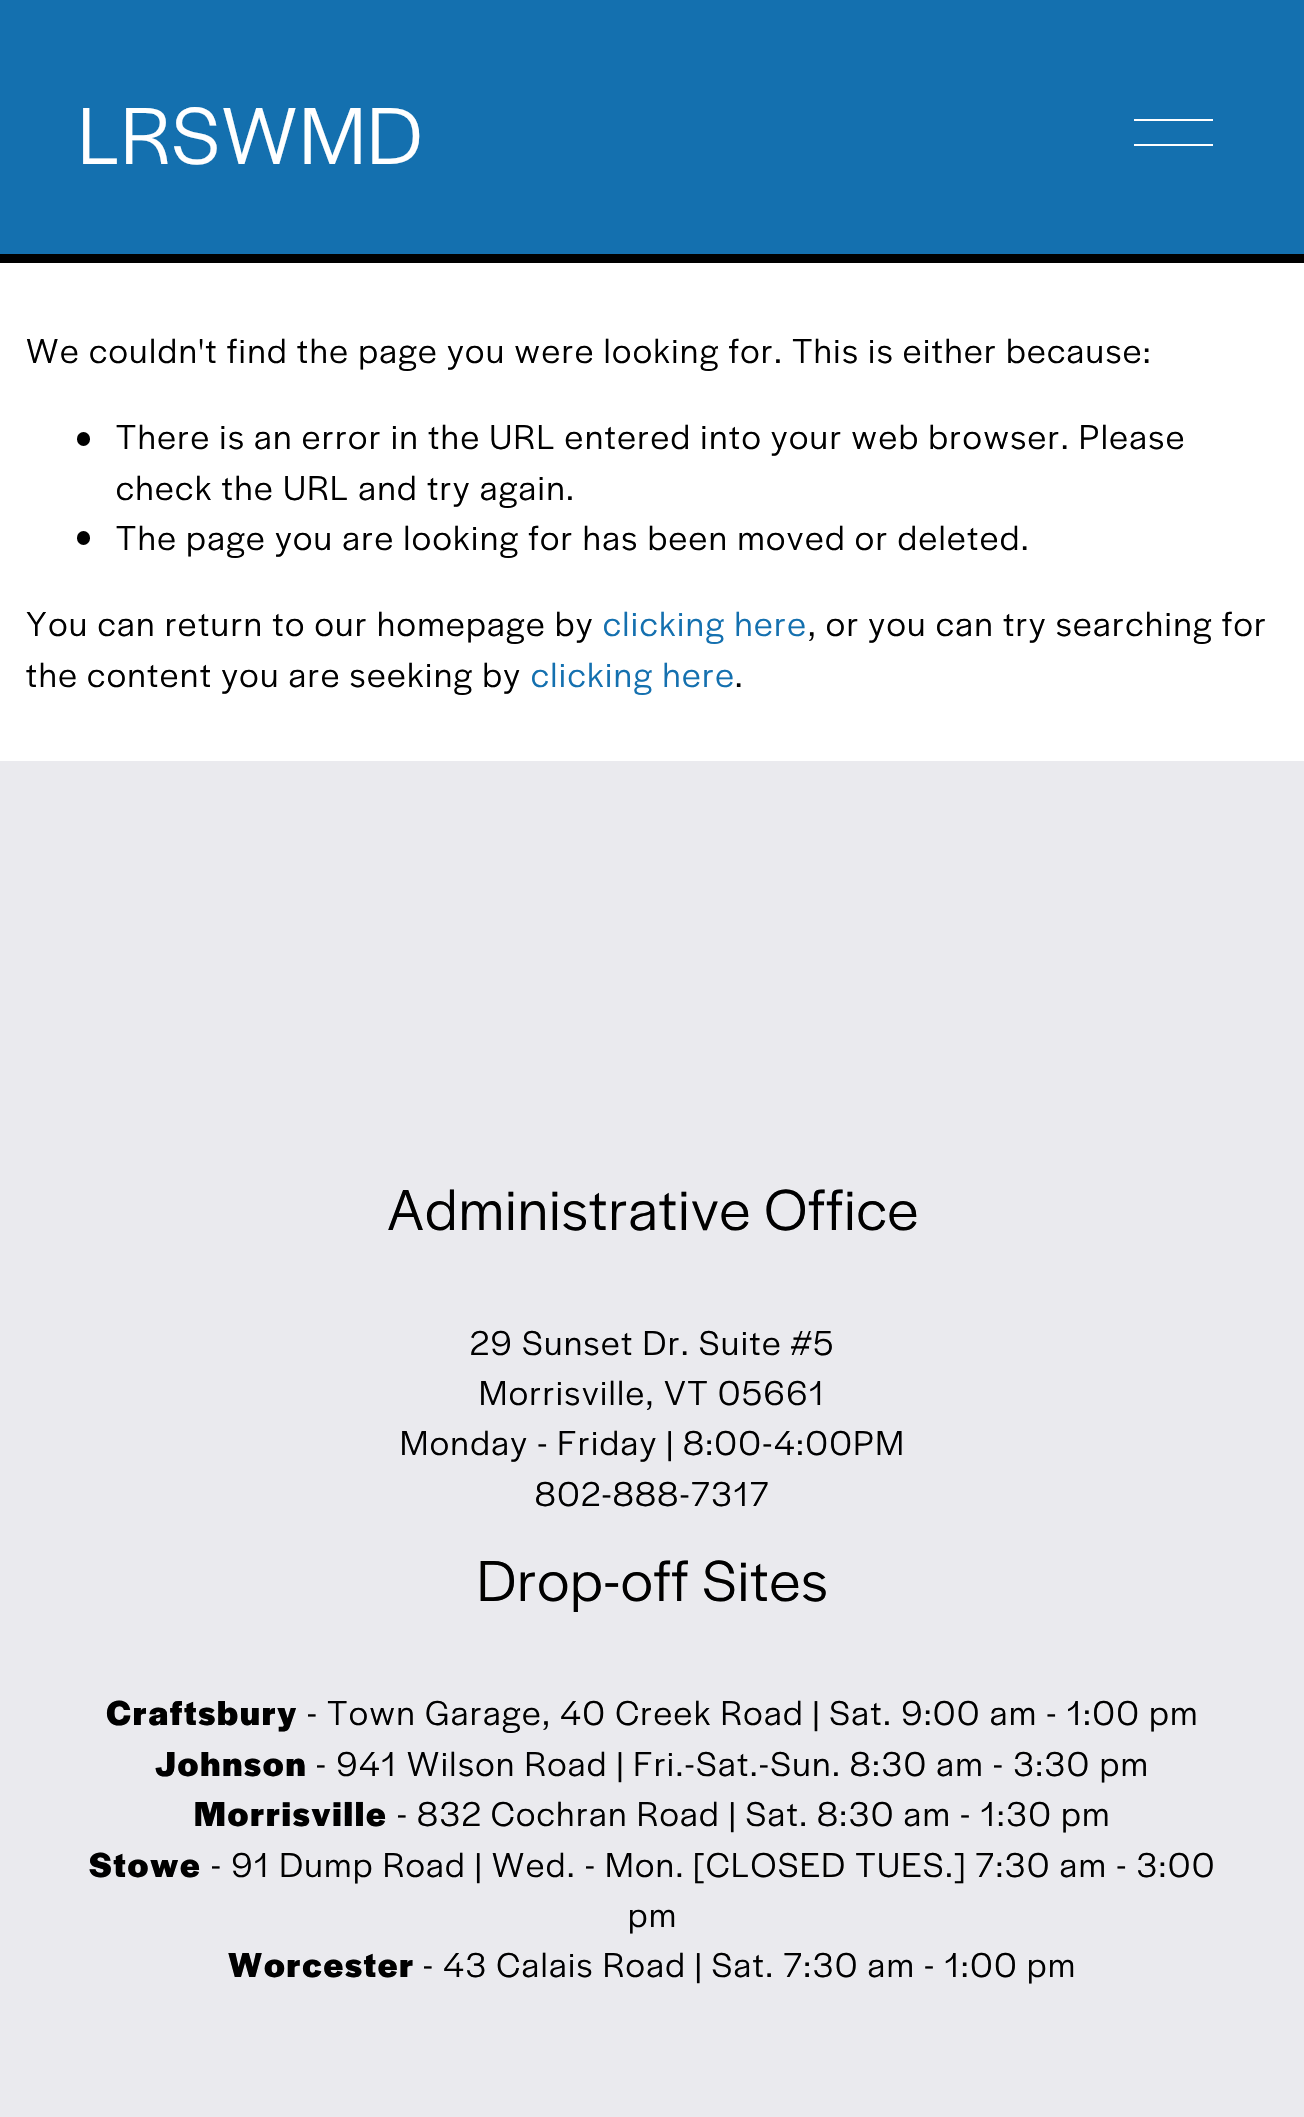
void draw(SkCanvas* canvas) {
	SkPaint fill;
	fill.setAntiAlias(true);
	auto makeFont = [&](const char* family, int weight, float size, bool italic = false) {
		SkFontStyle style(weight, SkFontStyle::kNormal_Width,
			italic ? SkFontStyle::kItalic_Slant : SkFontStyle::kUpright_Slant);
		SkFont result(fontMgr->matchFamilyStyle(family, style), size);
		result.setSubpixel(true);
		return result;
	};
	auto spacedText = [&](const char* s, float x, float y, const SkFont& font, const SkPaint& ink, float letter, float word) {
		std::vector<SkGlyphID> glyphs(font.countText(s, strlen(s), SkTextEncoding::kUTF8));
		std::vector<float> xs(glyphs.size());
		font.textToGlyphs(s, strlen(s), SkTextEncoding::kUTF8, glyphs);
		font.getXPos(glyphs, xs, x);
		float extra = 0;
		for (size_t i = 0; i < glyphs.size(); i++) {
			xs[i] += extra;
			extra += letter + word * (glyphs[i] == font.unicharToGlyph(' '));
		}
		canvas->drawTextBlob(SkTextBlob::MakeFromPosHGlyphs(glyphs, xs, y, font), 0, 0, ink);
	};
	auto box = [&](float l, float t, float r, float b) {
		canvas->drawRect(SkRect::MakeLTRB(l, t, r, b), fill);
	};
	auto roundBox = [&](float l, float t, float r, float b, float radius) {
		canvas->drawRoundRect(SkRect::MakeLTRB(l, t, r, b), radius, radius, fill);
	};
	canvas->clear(0xFFFFFFFF);
	fill.setColor(0xFF1470AF);
	box(0, 0, 1304, 254);
	fill.setColor(0xFFFFFFFF);
	box(1134, 119, 1213, 121);
	box(1134, 144, 1213, 146);
	fill.setColor(0xFF000000);
	box(0, 254, 1304, 263);
	roundBox(77, 432, 90, 446, 6.5f);
	roundBox(77, 531, 90, 545, 6.5f);
	fill.setColor(0xFFEAEAEE);
	box(0, 761, 1304, 2117);
	auto font1 = makeFont("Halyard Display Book", 400, 84.5f);
	fill.setColor(0xFFFFFFFF);
	spacedText("LRSWMD", 78, 164, font1, fill, 1.75f, 0);
	auto font2 = makeFont("Halyard Display Book", 400, 36);
	fill.setColor(0xFF000000);
	spacedText("We couldn't find the page you were looking for. This is either because:", 26, 363, font2, fill, 1.8f, 0);
	spacedText("There is an error in the URL entered into your web browser. Please", 116, 449, font2, fill, 1.8f, 0);
	spacedText("check the URL and try again.", 116, 500, font2, fill, 1.8f, 0);
	spacedText("The page you are looking for has been moved or deleted.", 116, 550, font2, fill, 1.8f, 0);
	spacedText("You can return to our homepage by", 26, 636, font2, fill, 1.8f, 0);
	fill.setColor(0xFF1470AF);
	spacedText("clicking here", 603, 636, font2, fill, 1.8f, 0);
	fill.setColor(0xFF000000);
	spacedText(", or you can try searching for", 808, 636, font2, fill, 1.8f, 0);
	spacedText("the content you are seeking by", 26, 687, font2, fill, 1.8f, 0);
	fill.setColor(0xFF1470AF);
	spacedText("clicking here", 531, 687, font2, fill, 1.8f, 0);
	fill.setColor(0xFF000000);
	spacedText(".", 735, 687, font2, fill, 1.8f, 0);
	auto font3 = makeFont("Halyard Display Book", 400, 60.25f);
	spacedText("Administrative Office", 387, 1230, font3, fill, 1.25f, 0);
	spacedText("29 Sunset Dr. Suite #5", 470, 1355, font2, fill, 1.8f, 0);
	spacedText("Morrisville, VT 05661", 479, 1405, font2, fill, 1.8f, 0);
	spacedText("Monday - Friday | 8:00-4:00PM", 400, 1455, font2, fill, 1.8f, 0);
	spacedText("802-888-7317", 535, 1506, font2, fill, 1.8f, 0);
	spacedText("Drop-off Sites", 477, 1601, font3, fill, 1.25f, 0);
	auto font4 = makeFont("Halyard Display", 700, 36);
	spacedText("Craftsbury", 106, 1725, font4, fill, 1.8f, 0);
	spacedText("- Town Garage, 40 Creek Road | Sat. 9:00 am - 1:00 pm", 307, 1725, font2, fill, 1.8f, 0);
	spacedText("Johnson", 155, 1776, font4, fill, 1.8f, 0);
	spacedText("- 941 Wilson Road | Fri.-Sat.-Sun. 8:30 am - 3:30 pm", 316, 1776, font2, fill, 1.8f, 0);
	spacedText("Morrisville", 194, 1826, font4, fill, 1.8f, 0);
	spacedText("- 832 Cochran Road | Sat. 8:30 am - 1:30 pm", 397, 1826, font2, fill, 1.8f, 0);
	spacedText("Stowe", 89, 1877, font4, fill, 1.8f, 0);
	spacedText("- 91 Dump Road | Wed. - Mon. [CLOSED TUES.] 7:30 am - 3:00", 211, 1877, font2, fill, 1.8f, 0);
	spacedText("pm", 628, 1927, font2, fill, 1.8f, 0);
	spacedText("Worcester", 228, 1977, font4, fill, 1.8f, 0);
	spacedText("- 43 Calais Road | Sat. 7:30 am - 1:00 pm", 423, 1977, font2, fill, 1.8f, 0);
}
